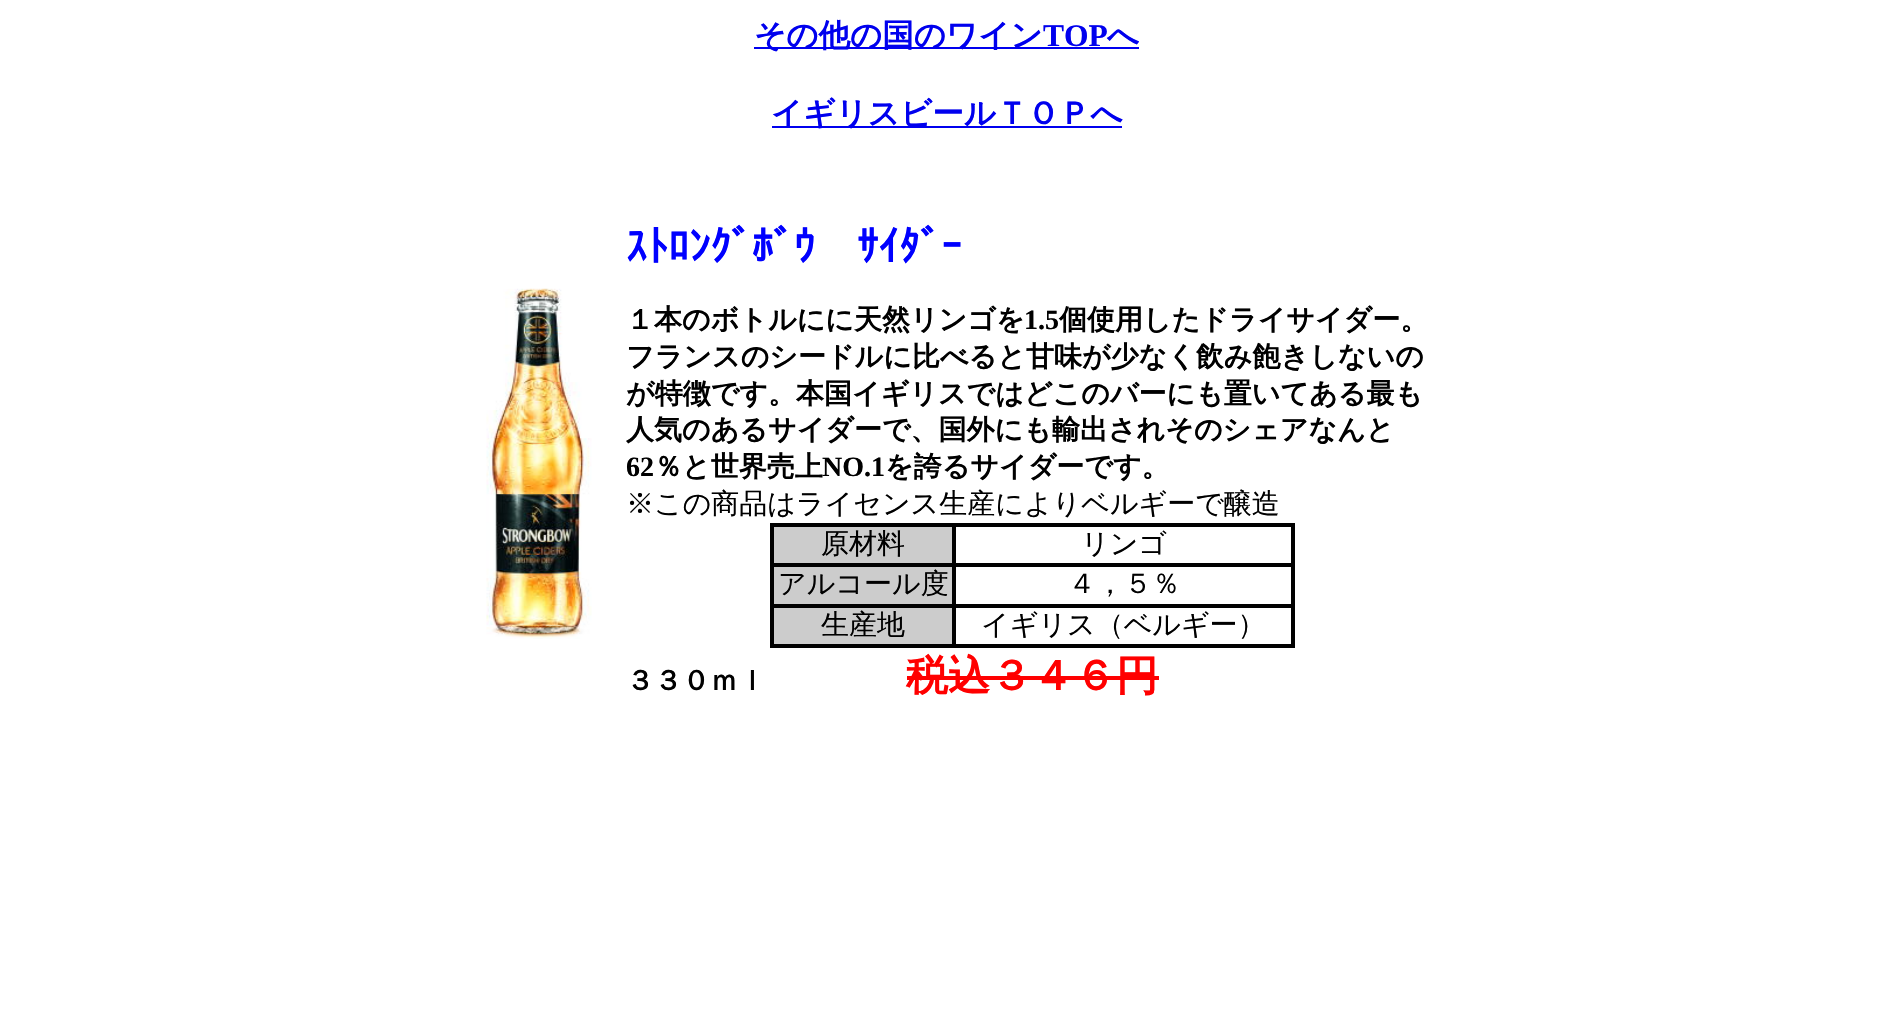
void draw(SkCanvas* canvas) {
	SkPaint fill;
	fill.setAntiAlias(true);
	auto makeFont = [&](const char* family, int weight, float size, bool italic = false) {
		SkFontStyle style(weight, SkFontStyle::kNormal_Width,
			italic ? SkFontStyle::kItalic_Slant : SkFontStyle::kUpright_Slant);
		SkFont result(fontMgr->matchFamilyStyle(family, style), size);
		result.setSubpixel(true);
		return result;
	};
	auto text = [&](const char* s, float x, float y, const SkFont& font) {
		canvas->drawString(s, x, y, font, fill);
	};
	auto box = [&](float l, float t, float r, float b) {
		canvas->drawRect(SkRect::MakeLTRB(l, t, r, b), fill);
	};
	auto picture = [&](const char* path, float l, float t, float r, float b) {
		auto image = SkImages::DeferredFromEncodedData(SkData::MakeFromFileName(path));
		canvas->drawImageRect(image, SkRect::MakeLTRB(l, t, r, b), SkSamplingOptions());
	};
	canvas->clear(0xFFFFFFFF);
	fill.setColor(0xFF0000EE);
	box(754, 47, 1139, 49);
	box(772, 126, 1122, 128);
	picture("image0.png", 486, 288, 592, 639);
	fill.setStyle(SkPaint::kStroke_Style);
	fill.setStrokeWidth(2);
	fill.setColor(0xFF000000);
	canvas->drawRect(SkRect::MakeLTRB(771, 524, 1294, 647), fill);
	fill.setStyle(SkPaint::kFill_Style);
	fill.setColor(0xFFCCCCCC);
	canvas->drawRect(SkRect::MakeLTRB(773, 526, 953, 564), fill);
	fill.setStyle(SkPaint::kStroke_Style);
	fill.setColor(0xFF000000);
	canvas->drawRect(SkRect::MakeLTRB(773, 526, 953, 564), fill);
	canvas->drawRect(SkRect::MakeLTRB(955, 526, 1292, 564), fill);
	fill.setStyle(SkPaint::kFill_Style);
	fill.setColor(0xFFCCCCCC);
	canvas->drawRect(SkRect::MakeLTRB(773, 566, 953, 605), fill);
	fill.setStyle(SkPaint::kStroke_Style);
	fill.setColor(0xFF000000);
	canvas->drawRect(SkRect::MakeLTRB(773, 566, 953, 605), fill);
	canvas->drawRect(SkRect::MakeLTRB(955, 566, 1292, 605), fill);
	fill.setStyle(SkPaint::kFill_Style);
	fill.setColor(0xFFCCCCCC);
	canvas->drawRect(SkRect::MakeLTRB(773, 607, 953, 645), fill);
	fill.setStyle(SkPaint::kStroke_Style);
	fill.setColor(0xFF000000);
	canvas->drawRect(SkRect::MakeLTRB(773, 607, 953, 645), fill);
	canvas->drawRect(SkRect::MakeLTRB(955, 607, 1292, 645), fill);
	fill.setStyle(SkPaint::kFill_Style);
	fill.setColor(0xFFFF0000);
	box(907, 676, 1159, 680);
	auto font1 = makeFont("WenQuanYi Zen Hei", 700, 31.5f);
	fill.setColor(0xFF0000EE);
	text("その他の国のワイン", 754, 46, font1);
	auto font2 = makeFont("Liberation Serif", 700, 31.5f);
	text("TOP", 1043, 46, font2);
	text("へ", 1107, 46, font1);
	text("イギリスビールＴＯＰへ", 771, 124, font1);
	auto font3 = makeFont("IPAGothic", 700, 42);
	fill.setColor(0xFF0000FF);
	text("ｽﾄﾛﾝｸﾞﾎﾞｳ　ｻｲﾀﾞｰ", 626, 261, font3);
	auto font4 = makeFont("WenQuanYi Zen Hei", 700, 28);
	fill.setColor(0xFF000000);
	text("１本のボトルにに天然リンゴを", 626, 329, font4);
	auto font5 = makeFont("Liberation Serif", 700, 28);
	text("1.5", 1024, 329, font5);
	text("個使用したドライサイダー。", 1059, 329, font4);
	text("フランスのシードルに比べると甘味が少なく飲み飽きしないの", 626, 366, font4);
	text("が特徴です。本国イギリスではどこのバーにも置いてある最も", 626, 403, font4);
	text("人気のあるサイダーで、国外にも輸出されそのシェアなんと", 626, 439, font4);
	text("62", 626, 476, font5);
	text("％と世界売上", 654, 476, font4);
	text("NO.1", 822, 476, font5);
	text("を誇るサイダーです。", 885, 476, font4);
	auto font6 = makeFont("WenQuanYi Zen Hei", 500, 28);
	text("※この商品はライセンス生産によりベルギーで醸造", 626, 513, font6);
	text("原材料", 821, 553, font6);
	text("リンゴ", 1081, 553, font6);
	text("アルコール度", 778, 593, font6);
	text("４，５％", 1068, 593, font6);
	text("生産地", 821, 634, font6);
	text("イギリス（ベルギー）", 981, 634, font6);
	text("３３０ｍｌ", 626, 690, font4);
	auto font7 = makeFont("WenQuanYi Zen Hei", 700, 42);
	fill.setColor(0xFFFF0000);
	text("税込３４６円", 906, 690, font7);
}
